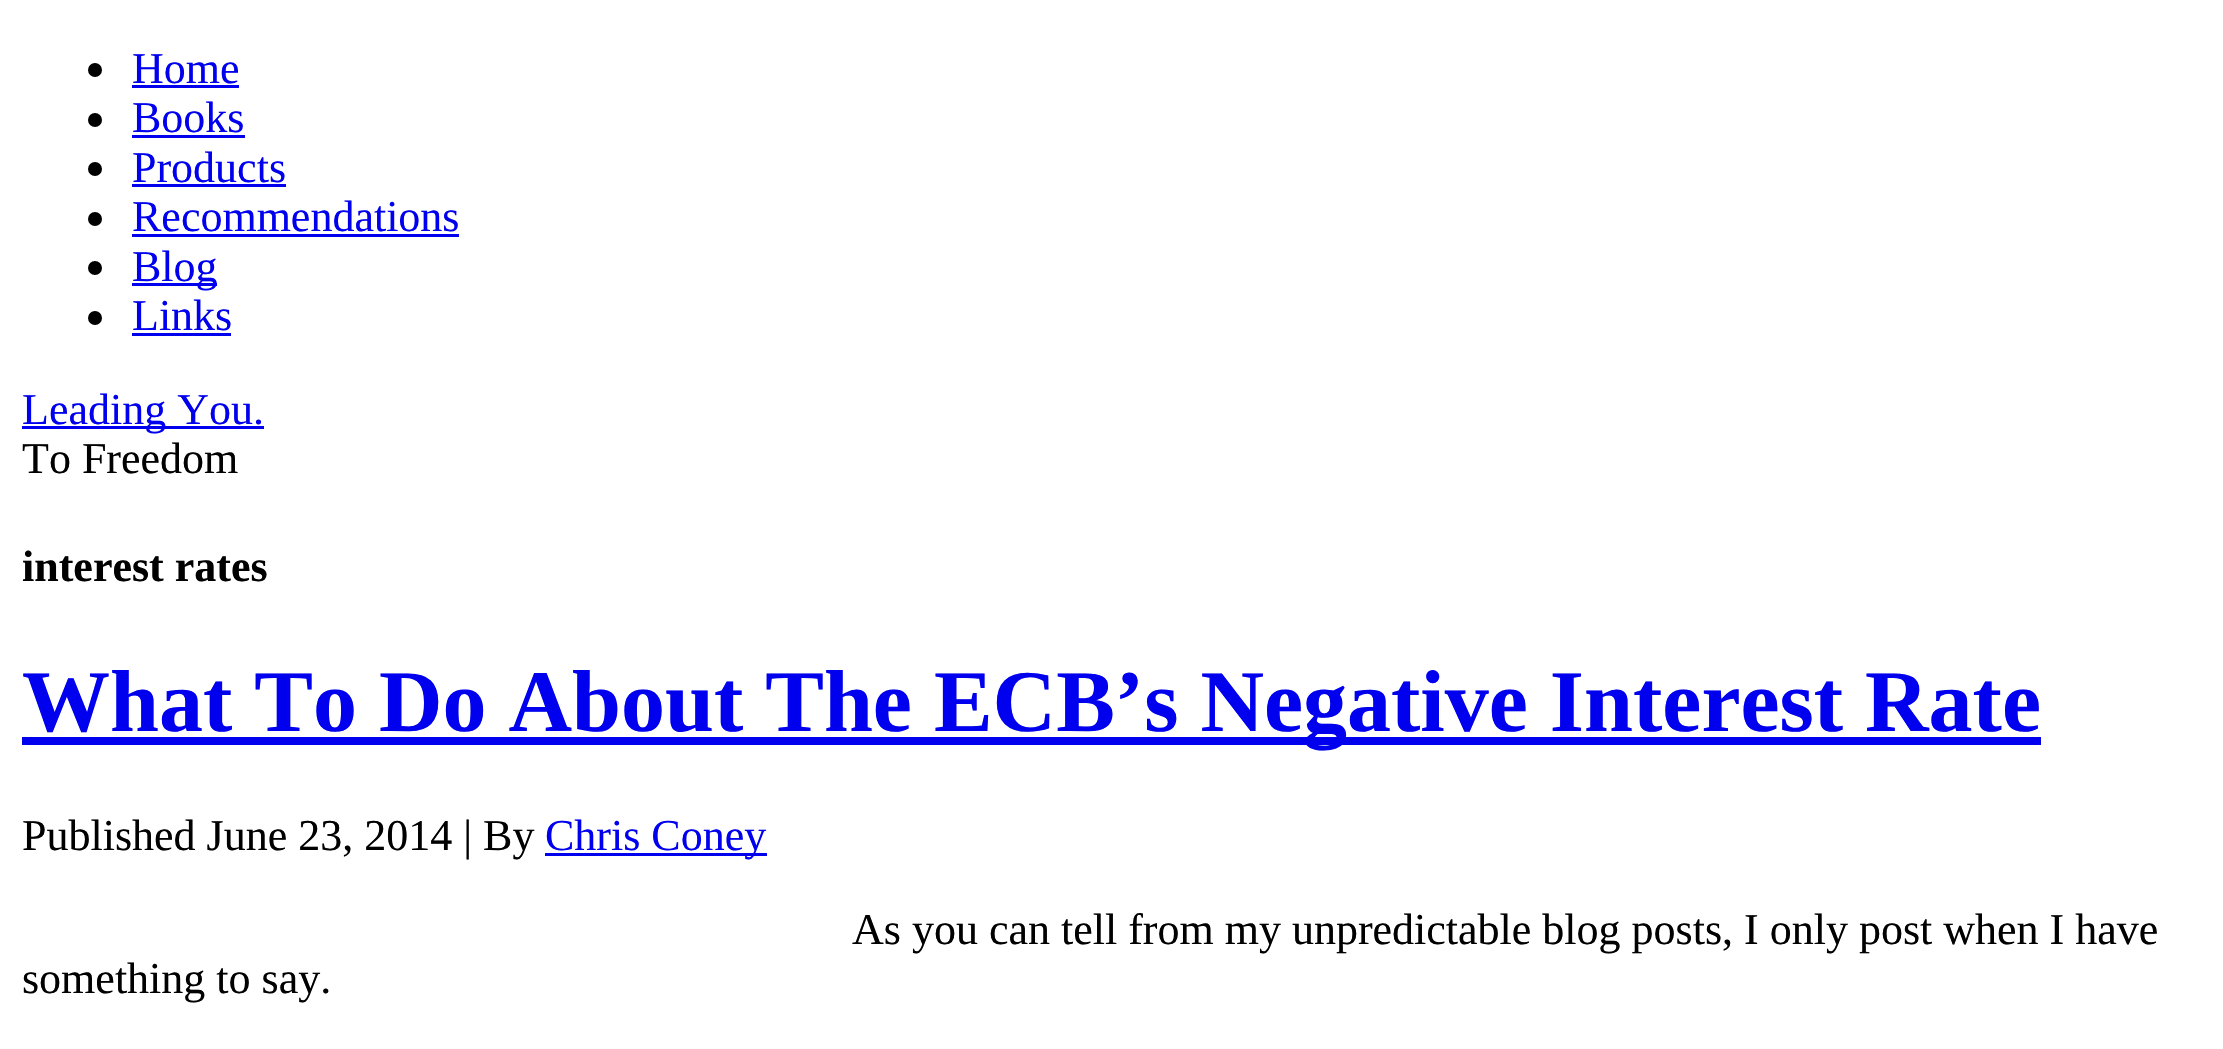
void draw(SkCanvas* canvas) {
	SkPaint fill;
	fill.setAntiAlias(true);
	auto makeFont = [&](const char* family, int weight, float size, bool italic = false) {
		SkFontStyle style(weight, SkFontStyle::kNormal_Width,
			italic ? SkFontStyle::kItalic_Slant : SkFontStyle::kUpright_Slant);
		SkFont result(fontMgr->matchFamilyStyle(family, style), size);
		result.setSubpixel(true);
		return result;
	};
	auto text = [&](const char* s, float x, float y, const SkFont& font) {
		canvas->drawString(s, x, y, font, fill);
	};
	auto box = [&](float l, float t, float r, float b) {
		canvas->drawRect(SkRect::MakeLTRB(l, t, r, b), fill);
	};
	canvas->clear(0xFFFFFFFF);
	fill.setColor(0xFF000000);
	canvas->drawCircle(95, 70, 7, fill);
	fill.setColor(0xFF0000EE);
	box(132, 85, 239, 88);
	fill.setColor(0xFF000000);
	canvas->drawCircle(95, 120, 7, fill);
	fill.setColor(0xFF0000EE);
	box(132, 135, 245, 138);
	fill.setColor(0xFF000000);
	canvas->drawCircle(95, 169, 7, fill);
	fill.setColor(0xFF0000EE);
	box(132, 184, 286, 187);
	fill.setColor(0xFF000000);
	canvas->drawCircle(95, 219, 7, fill);
	fill.setColor(0xFF0000EE);
	box(132, 234, 459, 237);
	fill.setColor(0xFF000000);
	canvas->drawCircle(95, 268, 7, fill);
	fill.setColor(0xFF0000EE);
	box(132, 283, 217, 286);
	fill.setColor(0xFF000000);
	canvas->drawCircle(95, 318, 7, fill);
	fill.setColor(0xFF0000EE);
	box(132, 333, 231, 336);
	box(22, 426, 264, 429);
	box(22, 737, 2041, 745);
	box(545, 853, 767, 856);
	auto font1 = makeFont("Liberation Serif", 400, 44);
	text("Home", 132, 83, font1);
	text("Books", 132, 132, font1);
	text("Products", 132, 182, font1);
	text("Recommendations", 132, 231, font1);
	text("Blog", 132, 281, font1);
	text("Links", 132, 330, font1);
	text("Leading You.", 22, 424, font1);
	fill.setColor(0xFF000000);
	text("To Freedom", 22, 473, font1);
	auto font2 = makeFont("Liberation Serif", 700, 44);
	text("interest rates", 22, 581, font2);
	auto font3 = makeFont("Liberation Serif", 700, 88);
	fill.setColor(0xFF0000EE);
	text("What To Do About The ECB’s Negative Interest Rate", 22, 731, font3);
	fill.setColor(0xFF000000);
	text("Published June 23, 2014 | By", 22, 850, font1);
	fill.setColor(0xFF0000EE);
	text("Chris Coney", 545, 850, font1);
	fill.setColor(0xFF000000);
	text("As you can tell from my unpredictable blog posts, I only post when I have", 852, 944, font1);
	text("something to say.", 22, 993, font1);
}
